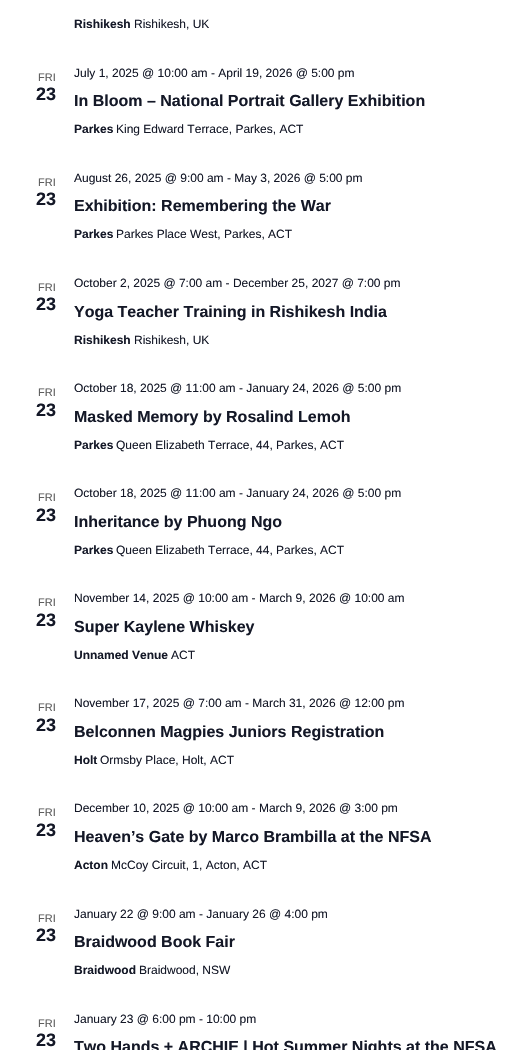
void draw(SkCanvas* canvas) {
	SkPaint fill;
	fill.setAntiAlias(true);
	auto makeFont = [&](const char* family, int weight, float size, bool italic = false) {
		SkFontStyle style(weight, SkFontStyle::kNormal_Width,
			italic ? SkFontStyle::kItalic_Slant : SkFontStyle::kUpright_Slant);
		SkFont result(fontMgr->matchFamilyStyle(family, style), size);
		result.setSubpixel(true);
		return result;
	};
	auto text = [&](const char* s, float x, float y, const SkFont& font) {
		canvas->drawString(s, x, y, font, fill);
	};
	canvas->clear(0xFFFFFFFF);
	auto font1 = makeFont("Liberation Sans", 700, 12);
	fill.setColor(0xFF141827);
	text("Rishikesh", 74, 28, font1);
	auto font2 = makeFont("Liberation Sans", 400, 12);
	text("Rishikesh, UK", 134, 28, font2);
	auto font3 = makeFont("Liberation Sans", 400, 11);
	fill.setColor(0xFF5D5D5D);
	text("FRI", 38, 81, font3);
	auto font4 = makeFont("Liberation Sans", 700, 18);
	fill.setColor(0xFF141827);
	text("23", 36, 100, font4);
	text("July 1, 2025 @ 10:00 am - April 19, 2026 @ 5:00 pm", 74, 77, font2);
	auto font5 = makeFont("Liberation Sans", 700, 16);
	text("In Bloom – National Portrait Gallery Exhibition", 74, 106, font5);
	text("Parkes", 74, 133, font1);
	text("King Edward Terrace, Parkes, ACT", 116, 133, font2);
	fill.setColor(0xFF5D5D5D);
	text("FRI", 38, 186, font3);
	fill.setColor(0xFF141827);
	text("23", 36, 205, font4);
	text("August 26, 2025 @ 9:00 am - May 3, 2026 @ 5:00 pm", 74, 182, font2);
	text("Exhibition: Remembering the War", 74, 211, font5);
	text("Parkes", 74, 238, font1);
	text("Parkes Place West, Parkes, ACT", 116, 238, font2);
	fill.setColor(0xFF5D5D5D);
	text("FRI", 38, 291, font3);
	fill.setColor(0xFF141827);
	text("23", 36, 310, font4);
	text("October 2, 2025 @ 7:00 am - December 25, 2027 @ 7:00 pm", 74, 287, font2);
	text("Yoga Teacher Training in Rishikesh India", 74, 317, font5);
	text("Rishikesh", 74, 344, font1);
	text("Rishikesh, UK", 134, 344, font2);
	fill.setColor(0xFF5D5D5D);
	text("FRI", 38, 396, font3);
	fill.setColor(0xFF141827);
	text("23", 36, 416, font4);
	text("October 18, 2025 @ 11:00 am - January 24, 2026 @ 5:00 pm", 74, 392, font2);
	text("Masked Memory by Rosalind Lemoh", 74, 422, font5);
	text("Parkes", 74, 449, font1);
	text("Queen Elizabeth Terrace, 44, Parkes, ACT", 116, 449, font2);
	fill.setColor(0xFF5D5D5D);
	text("FRI", 38, 501, font3);
	fill.setColor(0xFF141827);
	text("23", 36, 521, font4);
	text("October 18, 2025 @ 11:00 am - January 24, 2026 @ 5:00 pm", 74, 497, font2);
	text("Inheritance by Phuong Ngo", 74, 527, font5);
	text("Parkes", 74, 554, font1);
	text("Queen Elizabeth Terrace, 44, Parkes, ACT", 116, 554, font2);
	fill.setColor(0xFF5D5D5D);
	text("FRI", 38, 606, font3);
	fill.setColor(0xFF141827);
	text("23", 36, 626, font4);
	text("November 14, 2025 @ 10:00 am - March 9, 2026 @ 10:00 am", 74, 602, font2);
	text("Super Kaylene Whiskey", 74, 632, font5);
	text("Unnamed Venue", 74, 659, font1);
	text("ACT", 171, 659, font2);
	fill.setColor(0xFF5D5D5D);
	text("FRI", 38, 711, font3);
	fill.setColor(0xFF141827);
	text("23", 36, 731, font4);
	text("November 17, 2025 @ 7:00 am - March 31, 2026 @ 12:00 pm", 74, 707, font2);
	text("Belconnen Magpies Juniors Registration", 74, 737, font5);
	text("Holt", 74, 764, font1);
	text("Ormsby Place, Holt, ACT", 100, 764, font2);
	fill.setColor(0xFF5D5D5D);
	text("FRI", 38, 816, font3);
	fill.setColor(0xFF141827);
	text("23", 36, 836, font4);
	text("December 10, 2025 @ 10:00 am - March 9, 2026 @ 3:00 pm", 74, 812, font2);
	text("Heaven’s Gate by Marco Brambilla at the NFSA", 74, 842, font5);
	text("Acton", 74, 869, font1);
	text("McCoy Circuit, 1, Acton, ACT", 111, 869, font2);
	fill.setColor(0xFF5D5D5D);
	text("FRI", 38, 922, font3);
	fill.setColor(0xFF141827);
	text("23", 36, 941, font4);
	text("January 22 @ 9:00 am - January 26 @ 4:00 pm", 74, 918, font2);
	text("Braidwood Book Fair", 74, 947, font5);
	text("Braidwood", 74, 974, font1);
	text("Braidwood, NSW", 139, 974, font2);
	fill.setColor(0xFF5D5D5D);
	text("FRI", 38, 1027, font3);
	fill.setColor(0xFF141827);
	text("23", 36, 1046, font4);
	text("January 23 @ 6:00 pm - 10:00 pm", 74, 1023, font2);
	text("Two Hands + ARCHIE | Hot Summer Nights at the NFSA", 74, 1052, font5);
}
